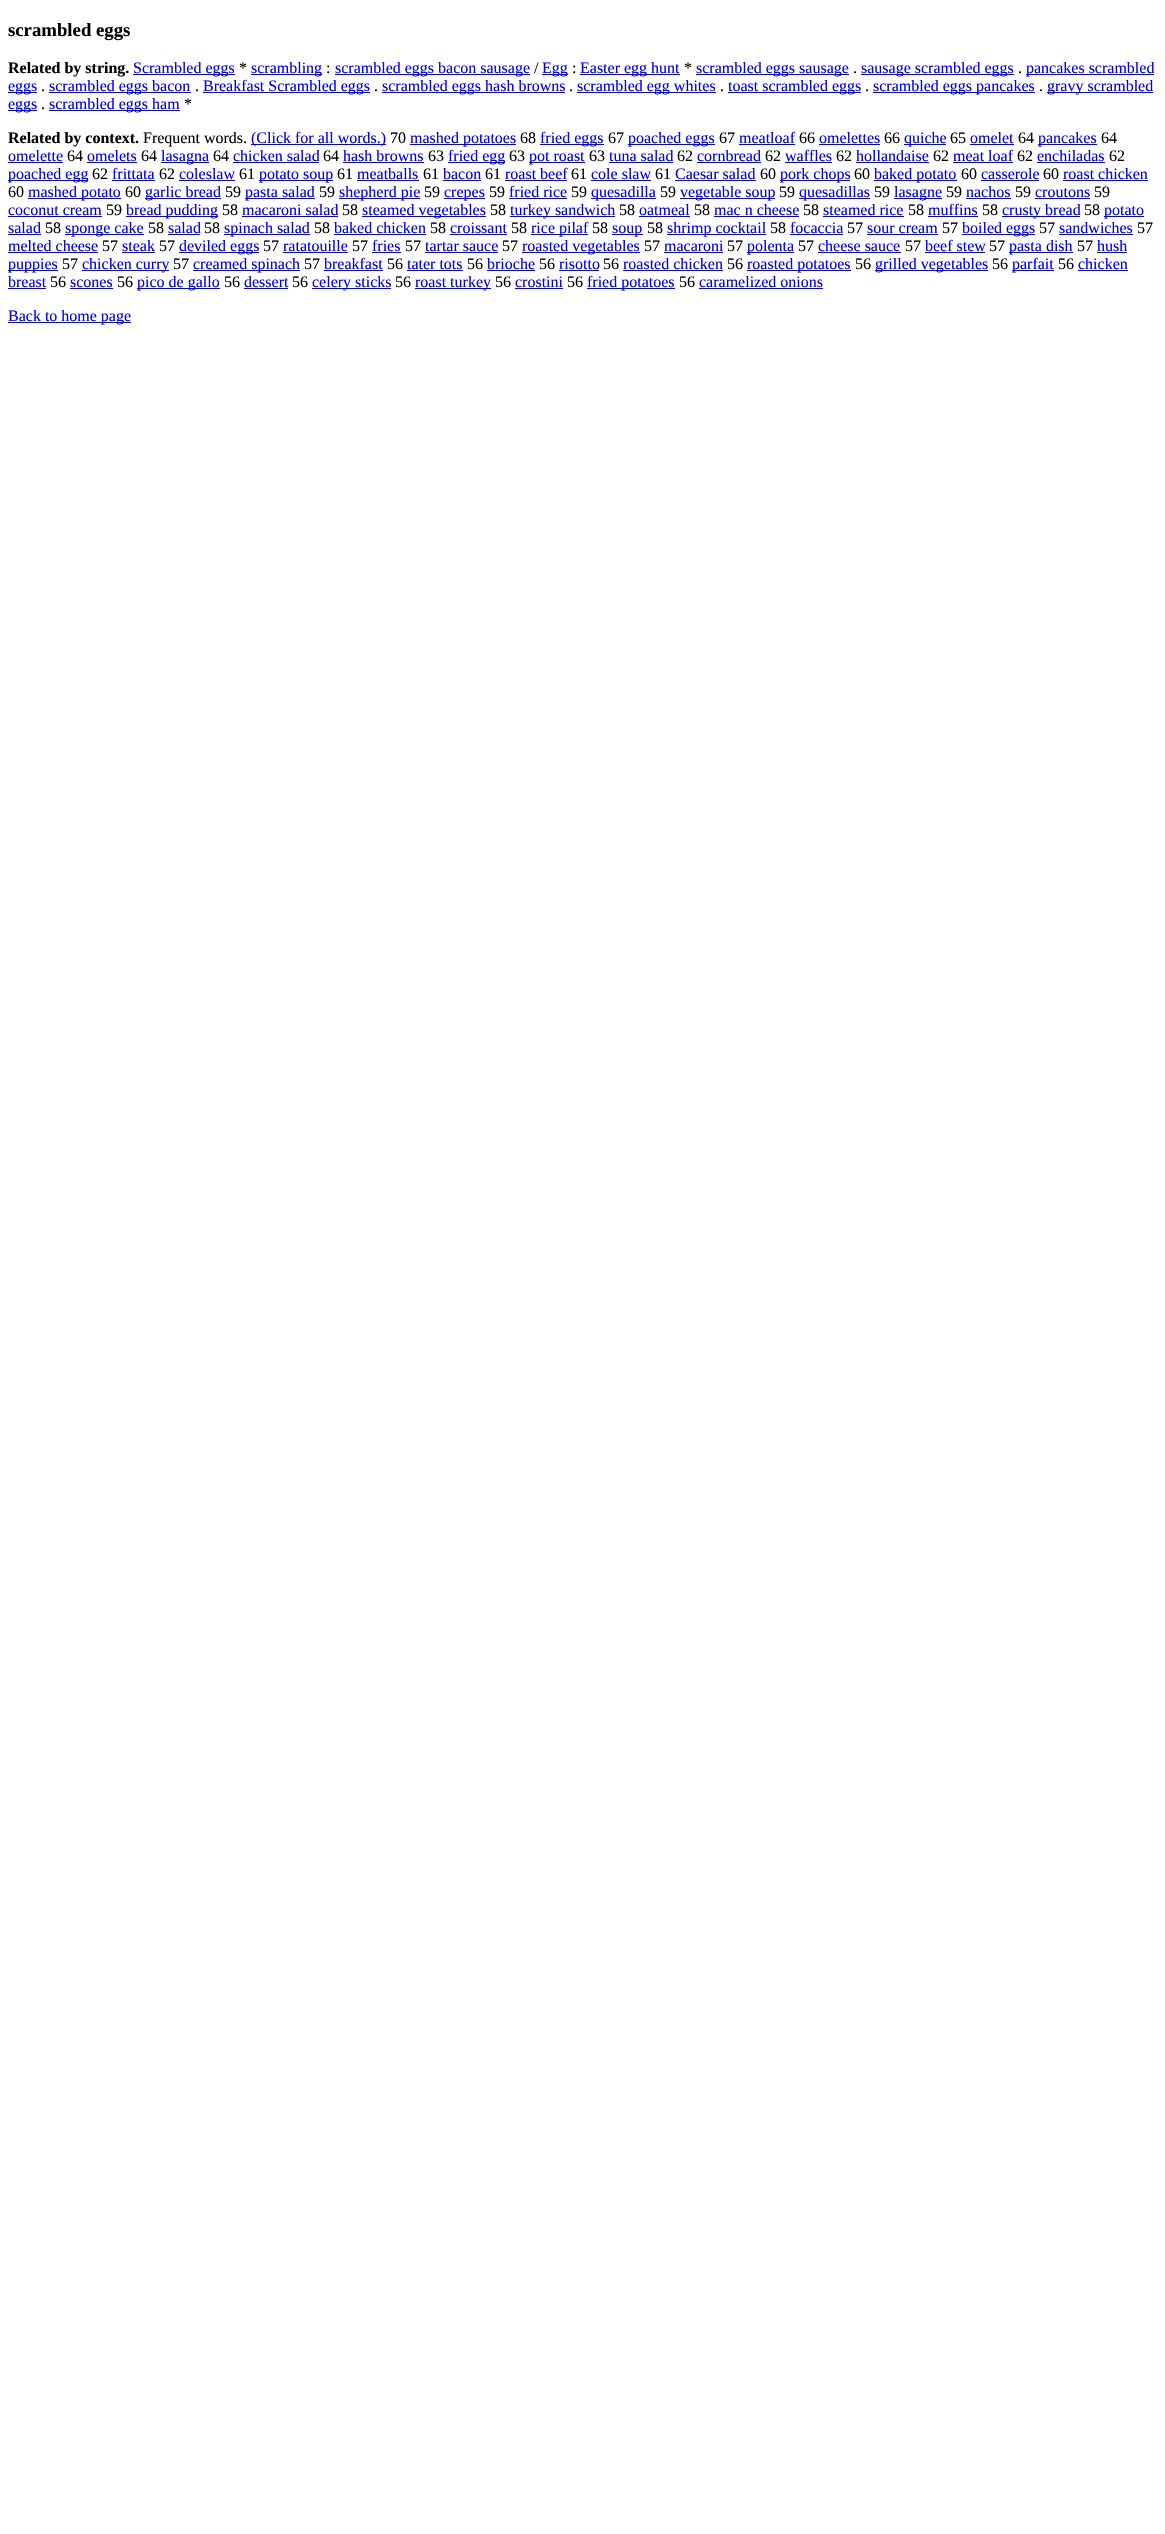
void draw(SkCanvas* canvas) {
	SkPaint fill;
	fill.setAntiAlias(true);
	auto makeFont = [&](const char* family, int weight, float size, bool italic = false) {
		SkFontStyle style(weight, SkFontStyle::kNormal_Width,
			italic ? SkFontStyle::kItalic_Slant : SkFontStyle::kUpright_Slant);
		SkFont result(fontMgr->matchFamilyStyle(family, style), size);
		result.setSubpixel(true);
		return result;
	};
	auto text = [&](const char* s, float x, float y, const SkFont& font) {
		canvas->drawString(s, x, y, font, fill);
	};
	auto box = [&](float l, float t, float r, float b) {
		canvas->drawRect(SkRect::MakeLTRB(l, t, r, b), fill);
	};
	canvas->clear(0xFFFFFFFF);
	fill.setColor(0xFF0000EE);
	box(133, 74, 235, 75);
	box(251, 74, 322, 75);
	box(335, 74, 530, 75);
	box(542, 74, 568, 75);
	box(580, 74, 680, 75);
	box(696, 74, 849, 75);
	box(861, 74, 1014, 75);
	box(1026, 74, 1154, 75);
	box(8, 92, 37, 93);
	box(49, 92, 191, 93);
	box(203, 92, 370, 93);
	box(382, 92, 565, 93);
	box(577, 92, 716, 93);
	box(728, 92, 861, 93);
	box(873, 92, 1035, 93);
	box(1047, 92, 1153, 93);
	box(8, 110, 37, 111);
	box(49, 110, 180, 111);
	box(251, 144, 386, 145);
	box(410, 144, 516, 145);
	box(540, 144, 604, 145);
	box(628, 144, 715, 145);
	box(739, 144, 795, 145);
	box(819, 144, 880, 145);
	box(904, 144, 946, 145);
	box(970, 144, 1014, 145);
	box(1038, 144, 1097, 145);
	box(8, 162, 63, 163);
	box(87, 162, 137, 163);
	box(161, 162, 209, 163);
	box(233, 162, 319, 163);
	box(343, 162, 424, 163);
	box(448, 162, 505, 163);
	box(529, 162, 585, 163);
	box(609, 162, 673, 163);
	box(697, 162, 761, 163);
	box(785, 162, 832, 163);
	box(856, 162, 929, 163);
	box(953, 162, 1013, 163);
	box(1037, 162, 1105, 163);
	box(8, 180, 88, 181);
	box(112, 180, 155, 181);
	box(179, 180, 235, 181);
	box(259, 180, 333, 181);
	box(357, 180, 419, 181);
	box(443, 180, 481, 181);
	box(505, 180, 567, 181);
	box(591, 180, 651, 181);
	box(675, 180, 756, 181);
	box(780, 180, 850, 181);
	box(874, 180, 957, 181);
	box(981, 180, 1039, 181);
	box(1063, 180, 1148, 181);
	box(28, 198, 121, 199);
	box(145, 198, 221, 199);
	box(245, 198, 315, 199);
	box(339, 198, 420, 199);
	box(444, 198, 485, 199);
	box(509, 198, 567, 199);
	box(591, 198, 656, 199);
	box(680, 198, 775, 199);
	box(799, 198, 870, 199);
	box(894, 198, 942, 199);
	box(966, 198, 1011, 199);
	box(1035, 198, 1090, 199);
	box(8, 216, 102, 217);
	box(126, 216, 218, 217);
	box(242, 216, 338, 217);
	box(362, 216, 486, 217);
	box(510, 216, 615, 217);
	box(639, 216, 690, 217);
	box(714, 216, 799, 217);
	box(823, 216, 904, 217);
	box(928, 216, 978, 217);
	box(1002, 216, 1080, 217);
	box(1104, 216, 1144, 217);
	box(8, 234, 41, 235);
	box(65, 234, 144, 235);
	box(168, 234, 200, 235);
	box(224, 234, 310, 235);
	box(334, 234, 426, 235);
	box(450, 234, 507, 235);
	box(531, 234, 588, 235);
	box(612, 234, 643, 235);
	box(667, 234, 766, 235);
	box(790, 234, 843, 235);
	box(867, 234, 938, 235);
	box(962, 234, 1035, 235);
	box(1059, 234, 1133, 235);
	box(8, 252, 98, 253);
	box(122, 252, 155, 253);
	box(179, 252, 259, 253);
	box(283, 252, 348, 253);
	box(372, 252, 401, 253);
	box(425, 252, 498, 253);
	box(522, 252, 640, 253);
	box(664, 252, 723, 253);
	box(747, 252, 794, 253);
	box(818, 252, 901, 253);
	box(925, 252, 985, 253);
	box(1009, 252, 1073, 253);
	box(1097, 252, 1127, 253);
	box(8, 270, 58, 271);
	box(82, 270, 169, 271);
	box(193, 270, 300, 271);
	box(324, 270, 383, 271);
	box(407, 270, 463, 271);
	box(487, 270, 535, 271);
	box(559, 270, 599, 271);
	box(623, 270, 723, 271);
	box(747, 270, 851, 271);
	box(875, 270, 988, 271);
	box(1012, 270, 1054, 271);
	box(1078, 270, 1128, 271);
	box(8, 288, 46, 289);
	box(70, 288, 113, 289);
	box(137, 288, 220, 289);
	box(244, 288, 288, 289);
	box(312, 288, 391, 289);
	box(415, 288, 491, 289);
	box(515, 288, 563, 289);
	box(587, 288, 675, 289);
	box(699, 288, 823, 289);
	box(8, 322, 131, 323);
	auto font1 = makeFont("Liberation Serif", 700, 18.75f);
	fill.setColor(0xFF000000);
	text("scrambled eggs", 8, 36, font1);
	auto font2 = makeFont("Liberation Serif", 700, 16);
	text("Related by string.", 8, 73, font2);
	auto font3 = makeFont("Liberation Serif", 400, 16);
	fill.setColor(0xFF0000EE);
	text("Scrambled eggs", 133, 73, font3);
	fill.setColor(0xFF000000);
	text("*", 239, 73, font3);
	fill.setColor(0xFF0000EE);
	text("scrambling", 251, 73, font3);
	fill.setColor(0xFF000000);
	text(":", 326, 73, font3);
	fill.setColor(0xFF0000EE);
	text("scrambled eggs bacon sausage", 335, 73, font3);
	fill.setColor(0xFF000000);
	text("/", 534, 73, font3);
	fill.setColor(0xFF0000EE);
	text("Egg", 542, 73, font3);
	fill.setColor(0xFF000000);
	text(":", 572, 73, font3);
	fill.setColor(0xFF0000EE);
	text("Easter egg hunt", 580, 73, font3);
	fill.setColor(0xFF000000);
	text("*", 684, 73, font3);
	fill.setColor(0xFF0000EE);
	text("scrambled eggs sausage", 696, 73, font3);
	fill.setColor(0xFF000000);
	text(".", 853, 73, font3);
	fill.setColor(0xFF0000EE);
	text("sausage scrambled eggs", 861, 73, font3);
	fill.setColor(0xFF000000);
	text(".", 1018, 73, font3);
	fill.setColor(0xFF0000EE);
	text("pancakes scrambled", 1026, 73, font3);
	text("eggs", 8, 91, font3);
	fill.setColor(0xFF000000);
	text(".", 41, 91, font3);
	fill.setColor(0xFF0000EE);
	text("scrambled eggs bacon", 49, 91, font3);
	fill.setColor(0xFF000000);
	text(".", 195, 91, font3);
	fill.setColor(0xFF0000EE);
	text("Breakfast Scrambled eggs", 203, 91, font3);
	fill.setColor(0xFF000000);
	text(".", 374, 91, font3);
	fill.setColor(0xFF0000EE);
	text("scrambled eggs hash browns", 382, 91, font3);
	fill.setColor(0xFF000000);
	text(".", 569, 91, font3);
	fill.setColor(0xFF0000EE);
	text("scrambled egg whites", 577, 91, font3);
	fill.setColor(0xFF000000);
	text(".", 720, 91, font3);
	fill.setColor(0xFF0000EE);
	text("toast scrambled eggs", 728, 91, font3);
	fill.setColor(0xFF000000);
	text(".", 865, 91, font3);
	fill.setColor(0xFF0000EE);
	text("scrambled eggs pancakes", 873, 91, font3);
	fill.setColor(0xFF000000);
	text(".", 1039, 91, font3);
	fill.setColor(0xFF0000EE);
	text("gravy scrambled", 1047, 91, font3);
	text("eggs", 8, 109, font3);
	fill.setColor(0xFF000000);
	text(".", 41, 109, font3);
	fill.setColor(0xFF0000EE);
	text("scrambled eggs ham", 49, 109, font3);
	fill.setColor(0xFF000000);
	text("*", 184, 109, font3);
	text("Related by context.", 8, 143, font2);
	text("Frequent words.", 143, 143, font3);
	fill.setColor(0xFF0000EE);
	text("(Click for all words.)", 251, 143, font3);
	fill.setColor(0xFF000000);
	text("70", 390, 143, font3);
	fill.setColor(0xFF0000EE);
	text("mashed potatoes", 410, 143, font3);
	fill.setColor(0xFF000000);
	text("68", 520, 143, font3);
	fill.setColor(0xFF0000EE);
	text("fried eggs", 540, 143, font3);
	fill.setColor(0xFF000000);
	text("67", 608, 143, font3);
	fill.setColor(0xFF0000EE);
	text("poached eggs", 628, 143, font3);
	fill.setColor(0xFF000000);
	text("67", 719, 143, font3);
	fill.setColor(0xFF0000EE);
	text("meatloaf", 739, 143, font3);
	fill.setColor(0xFF000000);
	text("66", 799, 143, font3);
	fill.setColor(0xFF0000EE);
	text("omelettes", 819, 143, font3);
	fill.setColor(0xFF000000);
	text("66", 884, 143, font3);
	fill.setColor(0xFF0000EE);
	text("quiche", 904, 143, font3);
	fill.setColor(0xFF000000);
	text("65", 950, 143, font3);
	fill.setColor(0xFF0000EE);
	text("omelet", 970, 143, font3);
	fill.setColor(0xFF000000);
	text("64", 1018, 143, font3);
	fill.setColor(0xFF0000EE);
	text("pancakes", 1038, 143, font3);
	fill.setColor(0xFF000000);
	text("64", 1101, 143, font3);
	fill.setColor(0xFF0000EE);
	text("omelette", 8, 161, font3);
	fill.setColor(0xFF000000);
	text("64", 67, 161, font3);
	fill.setColor(0xFF0000EE);
	text("omelets", 87, 161, font3);
	fill.setColor(0xFF000000);
	text("64", 141, 161, font3);
	fill.setColor(0xFF0000EE);
	text("lasagna", 161, 161, font3);
	fill.setColor(0xFF000000);
	text("64", 213, 161, font3);
	fill.setColor(0xFF0000EE);
	text("chicken salad", 233, 161, font3);
	fill.setColor(0xFF000000);
	text("64", 323, 161, font3);
	fill.setColor(0xFF0000EE);
	text("hash browns", 343, 161, font3);
	fill.setColor(0xFF000000);
	text("63", 428, 161, font3);
	fill.setColor(0xFF0000EE);
	text("fried egg", 448, 161, font3);
	fill.setColor(0xFF000000);
	text("63", 509, 161, font3);
	fill.setColor(0xFF0000EE);
	text("pot roast", 529, 161, font3);
	fill.setColor(0xFF000000);
	text("63", 589, 161, font3);
	fill.setColor(0xFF0000EE);
	text("tuna salad", 609, 161, font3);
	fill.setColor(0xFF000000);
	text("62", 677, 161, font3);
	fill.setColor(0xFF0000EE);
	text("cornbread", 697, 161, font3);
	fill.setColor(0xFF000000);
	text("62", 765, 161, font3);
	fill.setColor(0xFF0000EE);
	text("waffles", 785, 161, font3);
	fill.setColor(0xFF000000);
	text("62", 836, 161, font3);
	fill.setColor(0xFF0000EE);
	text("hollandaise", 856, 161, font3);
	fill.setColor(0xFF000000);
	text("62", 933, 161, font3);
	fill.setColor(0xFF0000EE);
	text("meat loaf", 953, 161, font3);
	fill.setColor(0xFF000000);
	text("62", 1017, 161, font3);
	fill.setColor(0xFF0000EE);
	text("enchiladas", 1037, 161, font3);
	fill.setColor(0xFF000000);
	text("62", 1109, 161, font3);
	fill.setColor(0xFF0000EE);
	text("poached egg", 8, 179, font3);
	fill.setColor(0xFF000000);
	text("62", 92, 179, font3);
	fill.setColor(0xFF0000EE);
	text("frittata", 112, 179, font3);
	fill.setColor(0xFF000000);
	text("62", 159, 179, font3);
	fill.setColor(0xFF0000EE);
	text("coleslaw", 179, 179, font3);
	fill.setColor(0xFF000000);
	text("61", 239, 179, font3);
	fill.setColor(0xFF0000EE);
	text("potato soup", 259, 179, font3);
	fill.setColor(0xFF000000);
	text("61", 337, 179, font3);
	fill.setColor(0xFF0000EE);
	text("meatballs", 357, 179, font3);
	fill.setColor(0xFF000000);
	text("61", 423, 179, font3);
	fill.setColor(0xFF0000EE);
	text("bacon", 443, 179, font3);
	fill.setColor(0xFF000000);
	text("61", 485, 179, font3);
	fill.setColor(0xFF0000EE);
	text("roast beef", 505, 179, font3);
	fill.setColor(0xFF000000);
	text("61", 571, 179, font3);
	fill.setColor(0xFF0000EE);
	text("cole slaw", 591, 179, font3);
	fill.setColor(0xFF000000);
	text("61", 655, 179, font3);
	fill.setColor(0xFF0000EE);
	text("Caesar salad", 675, 179, font3);
	fill.setColor(0xFF000000);
	text("60", 760, 179, font3);
	fill.setColor(0xFF0000EE);
	text("pork chops", 780, 179, font3);
	fill.setColor(0xFF000000);
	text("60", 854, 179, font3);
	fill.setColor(0xFF0000EE);
	text("baked potato", 874, 179, font3);
	fill.setColor(0xFF000000);
	text("60", 961, 179, font3);
	fill.setColor(0xFF0000EE);
	text("casserole", 981, 179, font3);
	fill.setColor(0xFF000000);
	text("60", 1043, 179, font3);
	fill.setColor(0xFF0000EE);
	text("roast chicken", 1063, 179, font3);
	fill.setColor(0xFF000000);
	text("60", 8, 197, font3);
	fill.setColor(0xFF0000EE);
	text("mashed potato", 28, 197, font3);
	fill.setColor(0xFF000000);
	text("60", 125, 197, font3);
	fill.setColor(0xFF0000EE);
	text("garlic bread", 145, 197, font3);
	fill.setColor(0xFF000000);
	text("59", 225, 197, font3);
	fill.setColor(0xFF0000EE);
	text("pasta salad", 245, 197, font3);
	fill.setColor(0xFF000000);
	text("59", 319, 197, font3);
	fill.setColor(0xFF0000EE);
	text("shepherd pie", 339, 197, font3);
	fill.setColor(0xFF000000);
	text("59", 424, 197, font3);
	fill.setColor(0xFF0000EE);
	text("crepes", 444, 197, font3);
	fill.setColor(0xFF000000);
	text("59", 489, 197, font3);
	fill.setColor(0xFF0000EE);
	text("fried rice", 509, 197, font3);
	fill.setColor(0xFF000000);
	text("59", 571, 197, font3);
	fill.setColor(0xFF0000EE);
	text("quesadilla", 591, 197, font3);
	fill.setColor(0xFF000000);
	text("59", 660, 197, font3);
	fill.setColor(0xFF0000EE);
	text("vegetable soup", 680, 197, font3);
	fill.setColor(0xFF000000);
	text("59", 779, 197, font3);
	fill.setColor(0xFF0000EE);
	text("quesadillas", 799, 197, font3);
	fill.setColor(0xFF000000);
	text("59", 874, 197, font3);
	fill.setColor(0xFF0000EE);
	text("lasagne", 894, 197, font3);
	fill.setColor(0xFF000000);
	text("59", 946, 197, font3);
	fill.setColor(0xFF0000EE);
	text("nachos", 966, 197, font3);
	fill.setColor(0xFF000000);
	text("59", 1015, 197, font3);
	fill.setColor(0xFF0000EE);
	text("croutons", 1035, 197, font3);
	fill.setColor(0xFF000000);
	text("59", 1094, 197, font3);
	fill.setColor(0xFF0000EE);
	text("coconut cream", 8, 215, font3);
	fill.setColor(0xFF000000);
	text("59", 106, 215, font3);
	fill.setColor(0xFF0000EE);
	text("bread pudding", 126, 215, font3);
	fill.setColor(0xFF000000);
	text("58", 222, 215, font3);
	fill.setColor(0xFF0000EE);
	text("macaroni salad", 242, 215, font3);
	fill.setColor(0xFF000000);
	text("58", 342, 215, font3);
	fill.setColor(0xFF0000EE);
	text("steamed vegetables", 362, 215, font3);
	fill.setColor(0xFF000000);
	text("58", 490, 215, font3);
	fill.setColor(0xFF0000EE);
	text("turkey sandwich", 510, 215, font3);
	fill.setColor(0xFF000000);
	text("58", 619, 215, font3);
	fill.setColor(0xFF0000EE);
	text("oatmeal", 639, 215, font3);
	fill.setColor(0xFF000000);
	text("58", 694, 215, font3);
	fill.setColor(0xFF0000EE);
	text("mac n cheese", 714, 215, font3);
	fill.setColor(0xFF000000);
	text("58", 803, 215, font3);
	fill.setColor(0xFF0000EE);
	text("steamed rice", 823, 215, font3);
	fill.setColor(0xFF000000);
	text("58", 908, 215, font3);
	fill.setColor(0xFF0000EE);
	text("muffins", 928, 215, font3);
	fill.setColor(0xFF000000);
	text("58", 982, 215, font3);
	fill.setColor(0xFF0000EE);
	text("crusty bread", 1002, 215, font3);
	fill.setColor(0xFF000000);
	text("58", 1084, 215, font3);
	fill.setColor(0xFF0000EE);
	text("potato", 1104, 215, font3);
	text("salad", 8, 233, font3);
	fill.setColor(0xFF000000);
	text("58", 45, 233, font3);
	fill.setColor(0xFF0000EE);
	text("sponge cake", 65, 233, font3);
	fill.setColor(0xFF000000);
	text("58", 148, 233, font3);
	fill.setColor(0xFF0000EE);
	text("salad", 168, 233, font3);
	fill.setColor(0xFF000000);
	text("58", 204, 233, font3);
	fill.setColor(0xFF0000EE);
	text("spinach salad", 224, 233, font3);
	fill.setColor(0xFF000000);
	text("58", 314, 233, font3);
	fill.setColor(0xFF0000EE);
	text("baked chicken", 334, 233, font3);
	fill.setColor(0xFF000000);
	text("58", 430, 233, font3);
	fill.setColor(0xFF0000EE);
	text("croissant", 450, 233, font3);
	fill.setColor(0xFF000000);
	text("58", 511, 233, font3);
	fill.setColor(0xFF0000EE);
	text("rice pilaf", 531, 233, font3);
	fill.setColor(0xFF000000);
	text("58", 592, 233, font3);
	fill.setColor(0xFF0000EE);
	text("soup", 612, 233, font3);
	fill.setColor(0xFF000000);
	text("58", 647, 233, font3);
	fill.setColor(0xFF0000EE);
	text("shrimp cocktail", 667, 233, font3);
	fill.setColor(0xFF000000);
	text("58", 770, 233, font3);
	fill.setColor(0xFF0000EE);
	text("focaccia", 790, 233, font3);
	fill.setColor(0xFF000000);
	text("57", 847, 233, font3);
	fill.setColor(0xFF0000EE);
	text("sour cream", 867, 233, font3);
	fill.setColor(0xFF000000);
	text("57", 942, 233, font3);
	fill.setColor(0xFF0000EE);
	text("boiled eggs", 962, 233, font3);
	fill.setColor(0xFF000000);
	text("57", 1039, 233, font3);
	fill.setColor(0xFF0000EE);
	text("sandwiches", 1059, 233, font3);
	fill.setColor(0xFF000000);
	text("57", 1137, 233, font3);
	fill.setColor(0xFF0000EE);
	text("melted cheese", 8, 251, font3);
	fill.setColor(0xFF000000);
	text("57", 102, 251, font3);
	fill.setColor(0xFF0000EE);
	text("steak", 122, 251, font3);
	fill.setColor(0xFF000000);
	text("57", 159, 251, font3);
	fill.setColor(0xFF0000EE);
	text("deviled eggs", 179, 251, font3);
	fill.setColor(0xFF000000);
	text("57", 263, 251, font3);
	fill.setColor(0xFF0000EE);
	text("ratatouille", 283, 251, font3);
	fill.setColor(0xFF000000);
	text("57", 352, 251, font3);
	fill.setColor(0xFF0000EE);
	text("fries", 372, 251, font3);
	fill.setColor(0xFF000000);
	text("57", 405, 251, font3);
	fill.setColor(0xFF0000EE);
	text("tartar sauce", 425, 251, font3);
	fill.setColor(0xFF000000);
	text("57", 502, 251, font3);
	fill.setColor(0xFF0000EE);
	text("roasted vegetables", 522, 251, font3);
	fill.setColor(0xFF000000);
	text("57", 644, 251, font3);
	fill.setColor(0xFF0000EE);
	text("macaroni", 664, 251, font3);
	fill.setColor(0xFF000000);
	text("57", 727, 251, font3);
	fill.setColor(0xFF0000EE);
	text("polenta", 747, 251, font3);
	fill.setColor(0xFF000000);
	text("57", 798, 251, font3);
	fill.setColor(0xFF0000EE);
	text("cheese sauce", 818, 251, font3);
	fill.setColor(0xFF000000);
	text("57", 905, 251, font3);
	fill.setColor(0xFF0000EE);
	text("beef stew", 925, 251, font3);
	fill.setColor(0xFF000000);
	text("57", 989, 251, font3);
	fill.setColor(0xFF0000EE);
	text("pasta dish", 1009, 251, font3);
	fill.setColor(0xFF000000);
	text("57", 1077, 251, font3);
	fill.setColor(0xFF0000EE);
	text("hush", 1097, 251, font3);
	text("puppies", 8, 269, font3);
	fill.setColor(0xFF000000);
	text("57", 62, 269, font3);
	fill.setColor(0xFF0000EE);
	text("chicken curry", 82, 269, font3);
	fill.setColor(0xFF000000);
	text("57", 173, 269, font3);
	fill.setColor(0xFF0000EE);
	text("creamed spinach", 193, 269, font3);
	fill.setColor(0xFF000000);
	text("57", 304, 269, font3);
	fill.setColor(0xFF0000EE);
	text("breakfast", 324, 269, font3);
	fill.setColor(0xFF000000);
	text("56", 387, 269, font3);
	fill.setColor(0xFF0000EE);
	text("tater tots", 407, 269, font3);
	fill.setColor(0xFF000000);
	text("56", 467, 269, font3);
	fill.setColor(0xFF0000EE);
	text("brioche", 487, 269, font3);
	fill.setColor(0xFF000000);
	text("56", 539, 269, font3);
	fill.setColor(0xFF0000EE);
	text("risotto", 559, 269, font3);
	fill.setColor(0xFF000000);
	text("56", 603, 269, font3);
	fill.setColor(0xFF0000EE);
	text("roasted chicken", 623, 269, font3);
	fill.setColor(0xFF000000);
	text("56", 727, 269, font3);
	fill.setColor(0xFF0000EE);
	text("roasted potatoes", 747, 269, font3);
	fill.setColor(0xFF000000);
	text("56", 855, 269, font3);
	fill.setColor(0xFF0000EE);
	text("grilled vegetables", 875, 269, font3);
	fill.setColor(0xFF000000);
	text("56", 992, 269, font3);
	fill.setColor(0xFF0000EE);
	text("parfait", 1012, 269, font3);
	fill.setColor(0xFF000000);
	text("56", 1058, 269, font3);
	fill.setColor(0xFF0000EE);
	text("chicken", 1078, 269, font3);
	text("breast", 8, 287, font3);
	fill.setColor(0xFF000000);
	text("56", 50, 287, font3);
	fill.setColor(0xFF0000EE);
	text("scones", 70, 287, font3);
	fill.setColor(0xFF000000);
	text("56", 117, 287, font3);
	fill.setColor(0xFF0000EE);
	text("pico de gallo", 137, 287, font3);
	fill.setColor(0xFF000000);
	text("56", 224, 287, font3);
	fill.setColor(0xFF0000EE);
	text("dessert", 244, 287, font3);
	fill.setColor(0xFF000000);
	text("56", 292, 287, font3);
	fill.setColor(0xFF0000EE);
	text("celery sticks", 312, 287, font3);
	fill.setColor(0xFF000000);
	text("56", 395, 287, font3);
	fill.setColor(0xFF0000EE);
	text("roast turkey", 415, 287, font3);
	fill.setColor(0xFF000000);
	text("56", 495, 287, font3);
	fill.setColor(0xFF0000EE);
	text("crostini", 515, 287, font3);
	fill.setColor(0xFF000000);
	text("56", 567, 287, font3);
	fill.setColor(0xFF0000EE);
	text("fried potatoes", 587, 287, font3);
	fill.setColor(0xFF000000);
	text("56", 679, 287, font3);
	fill.setColor(0xFF0000EE);
	text("caramelized onions", 699, 287, font3);
	text("Back to home page", 8, 321, font3);
}
